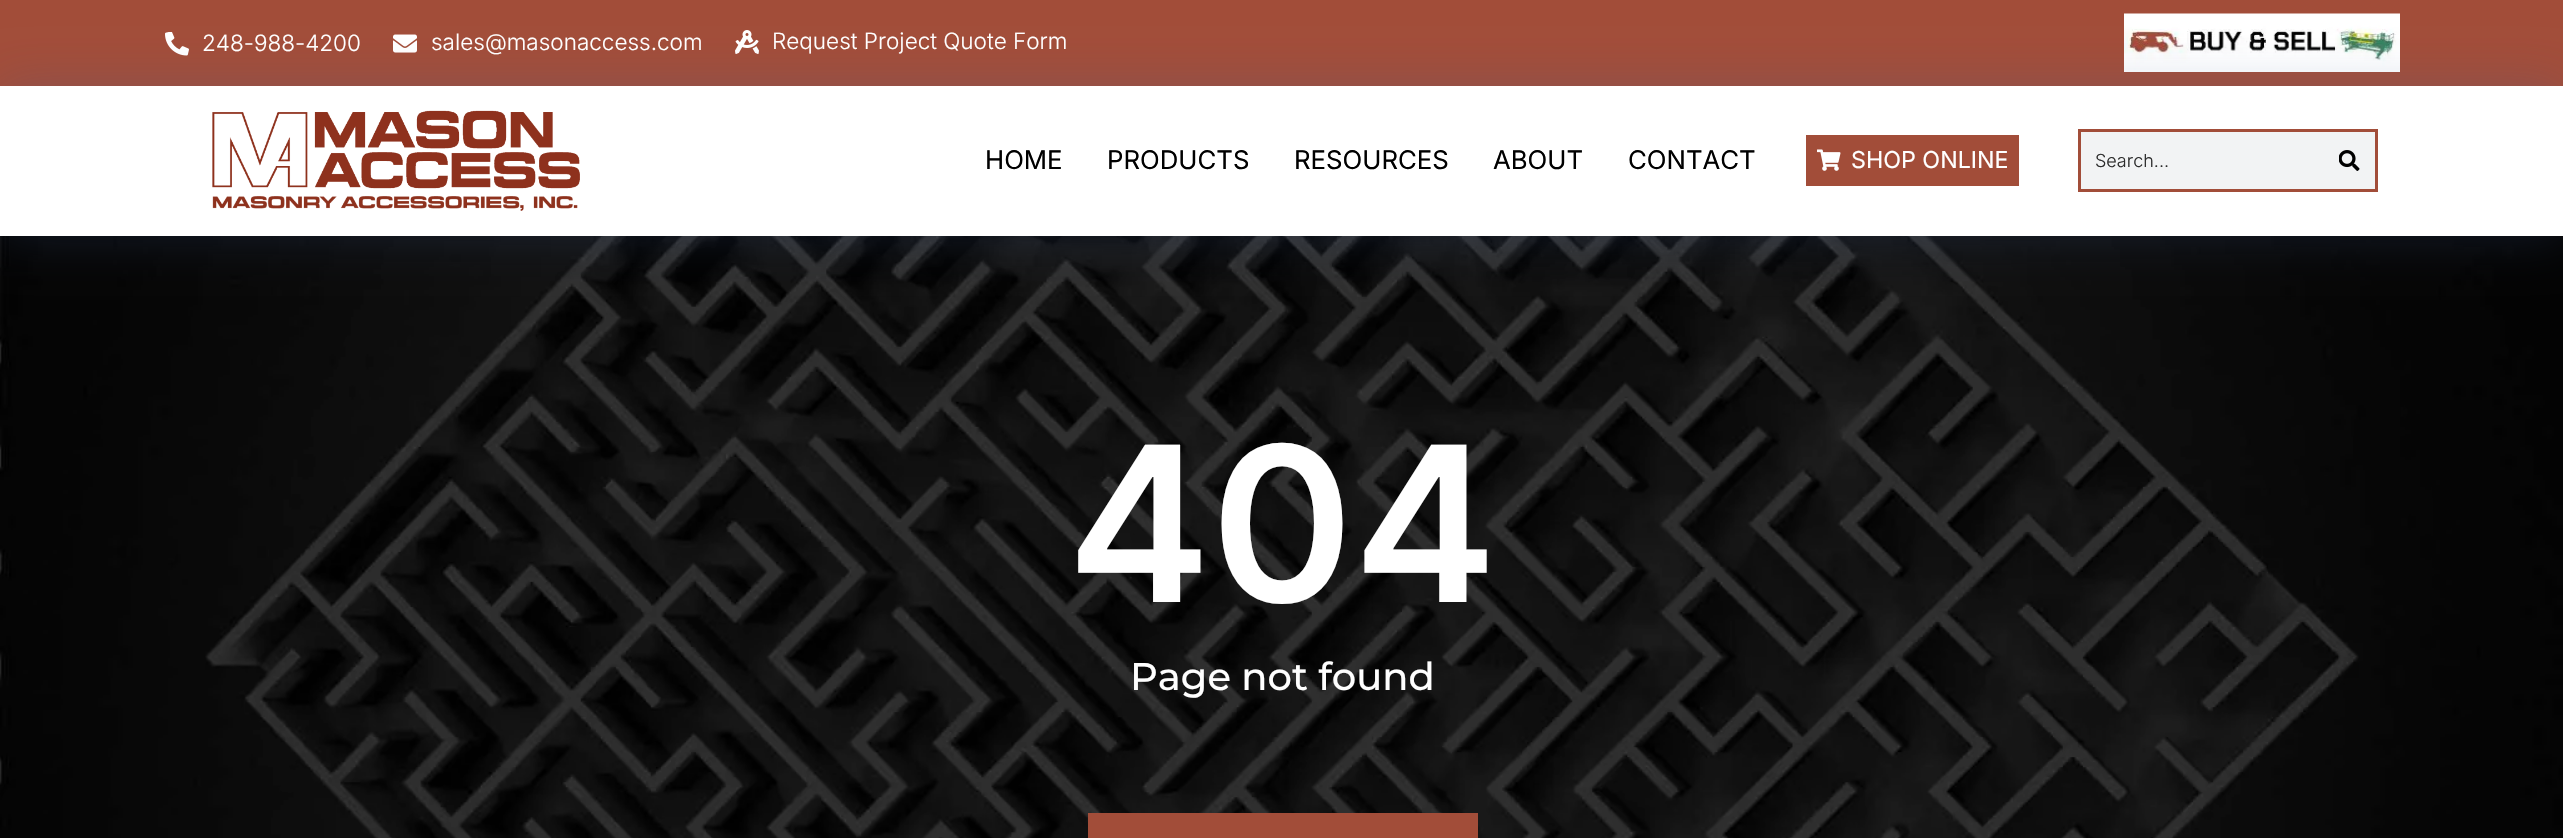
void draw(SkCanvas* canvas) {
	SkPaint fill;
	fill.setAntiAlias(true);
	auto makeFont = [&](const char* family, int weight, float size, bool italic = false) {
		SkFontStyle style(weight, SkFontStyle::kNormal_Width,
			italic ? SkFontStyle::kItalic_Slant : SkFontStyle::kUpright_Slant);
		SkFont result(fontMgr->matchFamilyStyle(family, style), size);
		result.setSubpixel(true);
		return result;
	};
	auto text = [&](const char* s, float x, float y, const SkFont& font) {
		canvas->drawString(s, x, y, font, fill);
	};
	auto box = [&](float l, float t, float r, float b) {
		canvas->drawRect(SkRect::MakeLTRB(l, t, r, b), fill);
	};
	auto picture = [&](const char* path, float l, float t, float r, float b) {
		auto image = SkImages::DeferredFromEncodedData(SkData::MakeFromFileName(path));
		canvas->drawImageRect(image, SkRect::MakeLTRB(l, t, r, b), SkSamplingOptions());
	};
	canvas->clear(0xFFA24D39);
	picture("image0.png", 165, 32, 189, 56);
	picture("image1.png", 393, 34, 417, 53);
	picture("image2.png", 735, 30, 759, 54);
	picture("image3.png", 2124, 13, 2400, 72);
	picture("image7.png", 0, 236, 2563, 838);
	fill.setColor(0x40405C92);
	fill.setMaskFilter(SkMaskFilter::MakeBlur(kNormal_SkBlurStyle, 25));
	canvas->drawRect(SkRect::MakeLTRB(0, 86, 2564, 236), fill);
	fill.setMaskFilter(nullptr);
	fill.setColor(0xFFFFFFFF);
	box(0, 86, 2563, 236);
	picture("image4.png", 212, 110, 580, 211);
	fill.setColor(0xFFA24D39);
	box(1806, 135, 2019, 186);
	picture("image5.png", 1817, 149, 1841, 171);
	fill.setColor(0xFFF2F3F4);
	canvas->drawRect(SkRect::MakeLTRB(2079.5f, 130.5f, 2376.5f, 190.5f), fill);
	fill.setStyle(SkPaint::kStroke_Style);
	fill.setStrokeWidth(3);
	fill.setColor(0xFFA24D39);
	canvas->drawRect(SkRect::MakeLTRB(2079.5f, 130.5f, 2376.5f, 190.5f), fill);
	picture("image6.png", 2339, 150, 2360, 171);
	fill.setStyle(SkPaint::kFill_Style);
	box(1088, 813, 1478, 838);
	auto font1 = makeFont("Inter", 300, 22.5f);
	fill.setColor(0xFFFFFFFF);
	text("248-988-4200", 202, 51, font1);
	text("sales@masonaccess.com", 431, 50, font1);
	text("Request Project Quote Form", 772, 49, font1);
	auto font2 = makeFont("Inter", 400, 25.75f);
	fill.setColor(0xFF000000);
	text("HOME", 985, 169, font2);
	text("PRODUCTS", 1107, 169, font2);
	text("RESOURCES", 1294, 169, font2);
	text("ABOUT", 1493, 169, font2);
	text("CONTACT", 1628, 169, font2);
	auto font3 = makeFont("Inter", 400, 23.25f);
	fill.setColor(0xFFFFFFFF);
	text("SHOP ONLINE", 1851, 168, font3);
	auto font4 = makeFont("Inter", 300, 18);
	fill.setColor(0xFF2C2C2C);
	text("Search...", 2095, 167, font4);
	auto font5 = makeFont("Inter", 600, 216);
	fill.setColor(0xFFFFFFFF);
	text("404", 1067, 602, font5);
	auto font6 = makeFont("Montserrat", 500, 38.5f);
	text("Page not found", 1130, 690, font6);
}
